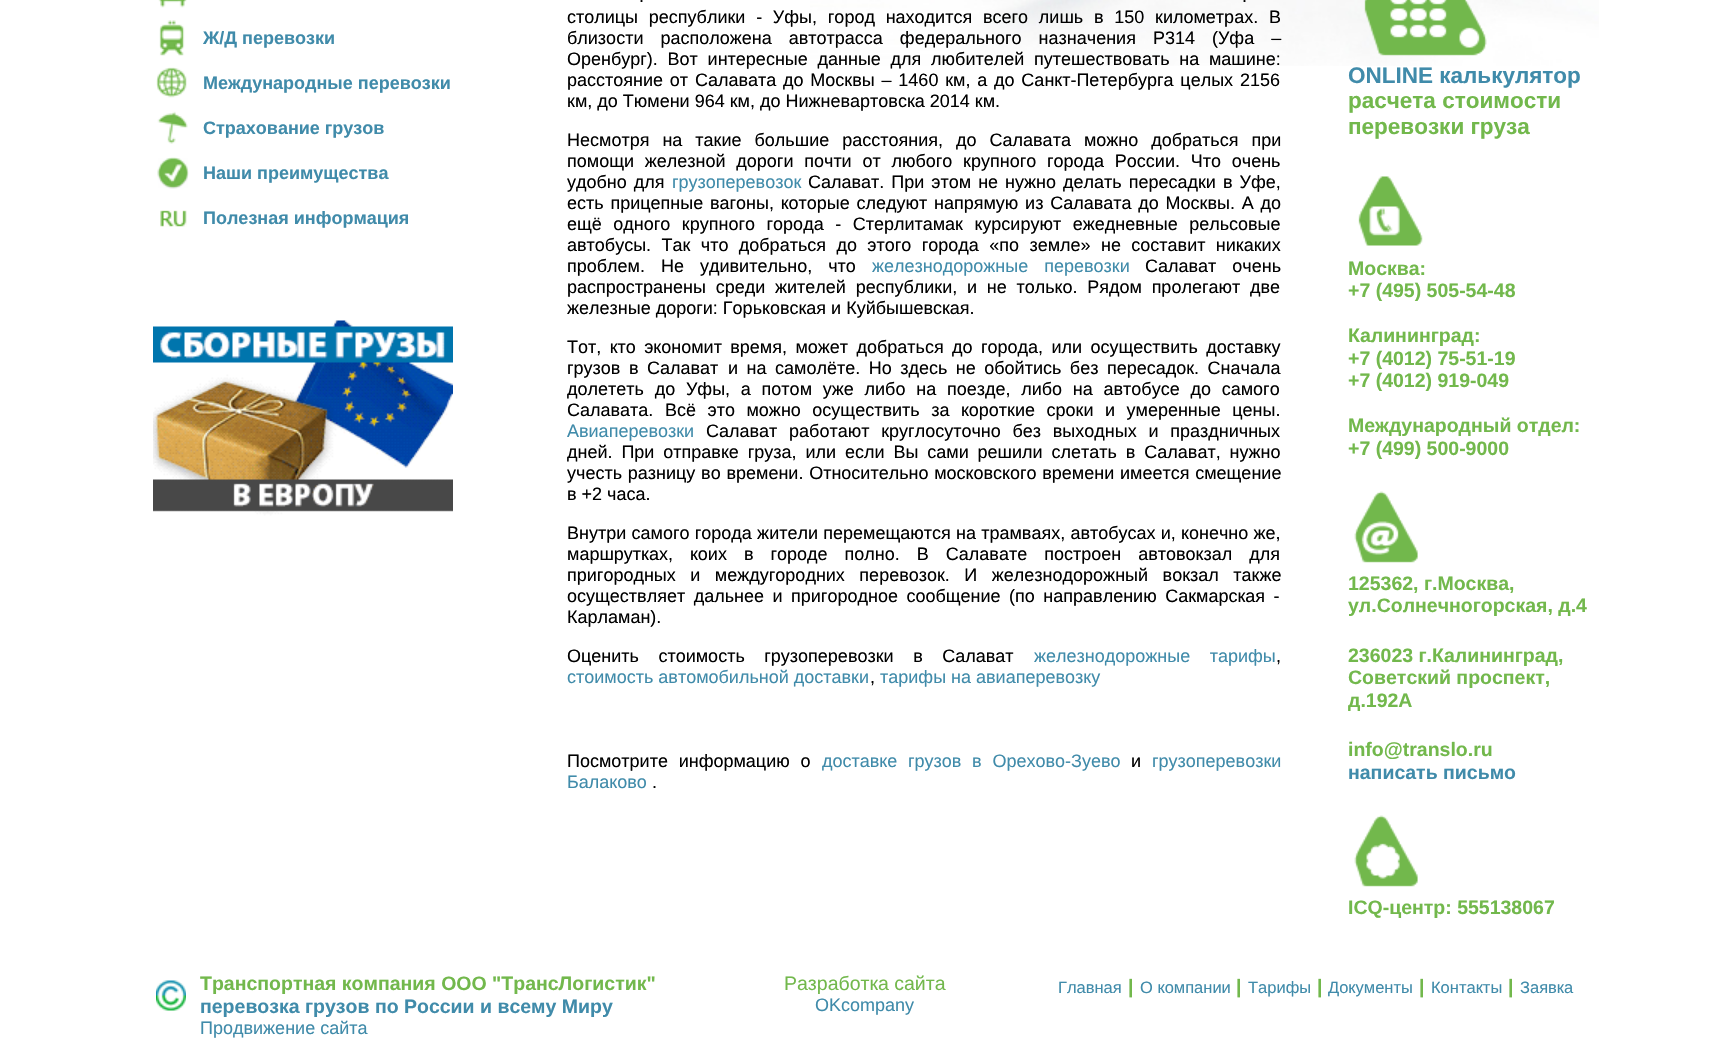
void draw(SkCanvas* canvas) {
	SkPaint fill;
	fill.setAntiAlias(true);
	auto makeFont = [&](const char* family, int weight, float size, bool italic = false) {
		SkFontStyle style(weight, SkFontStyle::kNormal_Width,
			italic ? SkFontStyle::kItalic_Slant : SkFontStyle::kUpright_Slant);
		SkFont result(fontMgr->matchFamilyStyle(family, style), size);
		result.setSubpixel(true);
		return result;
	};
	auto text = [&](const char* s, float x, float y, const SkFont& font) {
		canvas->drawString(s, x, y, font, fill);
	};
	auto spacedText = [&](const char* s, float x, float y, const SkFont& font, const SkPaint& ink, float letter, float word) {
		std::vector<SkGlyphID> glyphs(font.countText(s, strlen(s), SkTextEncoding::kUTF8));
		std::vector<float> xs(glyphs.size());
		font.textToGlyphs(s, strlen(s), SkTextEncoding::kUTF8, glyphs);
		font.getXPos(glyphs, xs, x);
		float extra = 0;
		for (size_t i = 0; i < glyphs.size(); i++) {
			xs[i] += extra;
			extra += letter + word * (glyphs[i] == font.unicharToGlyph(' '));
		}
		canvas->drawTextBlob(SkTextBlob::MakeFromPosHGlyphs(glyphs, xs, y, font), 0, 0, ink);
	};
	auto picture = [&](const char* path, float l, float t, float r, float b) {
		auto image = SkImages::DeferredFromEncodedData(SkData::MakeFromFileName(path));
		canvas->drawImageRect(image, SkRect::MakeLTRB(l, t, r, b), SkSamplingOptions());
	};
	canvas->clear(0xFFFFFFFF);
	picture("image0.png", 810, 0, 1599, 66);
	picture("image1.png", 158, 0, 187, 8);
	picture("image2.png", 159, 20, 185, 56);
	picture("image3.png", 156, 67, 187, 98);
	picture("image4.png", 157, 111, 188, 144);
	picture("image5.png", 157, 157, 189, 189);
	picture("image6.png", 160, 210, 187, 227);
	picture("image7.png", 153, 320, 453, 516);
	picture("image8.png", 1364, 0, 1487, 56);
	picture("image9.png", 1358, 176, 1423, 246);
	picture("image10.png", 1354, 491, 1418, 563);
	picture("image11.png", 1354, 815, 1418, 887);
	picture("image12.png", 156, 980, 186, 1011);
	auto font1 = makeFont("Liberation Sans", 700, 18);
	fill.setColor(0xFF408BAA);
	text("Ж/Д перевозки", 203, 44, font1);
	text("Международные перевозки", 203, 89, font1);
	text("Страхование грузов", 203, 134, font1);
	text("Наши преимущества", 203, 179, font1);
	text("Полезная информация", 203, 224, font1);
	auto font2 = makeFont("Liberation Sans", 400, 18);
	fill.setColor(0xFF000000);
	spacedText(".", 639, 2, font2, fill, 0, 6);
	spacedText(".", 1242, 2, font2, fill, 0, 6);
	spacedText("столицы республики - Уфы, город находится всего лишь в 150 километрах. В", 567, 23, font2, fill, 0, 5.75f);
	spacedText("близости расположена автотрасса федерального назначения Р314 (Уфа –", 567, 44, font2, fill, 0, 12);
	spacedText("Оренбург). Вот интересные данные для любителей путешествовать на машине:", 567, 65, font2, fill, 0, 4.75f);
	spacedText("расстояние от Салавата до Москвы – 1460 км, а до Санкт-Петербурга целых 2156", 567, 86, font2, fill, 0, 1.8f);
	text("км, до Тюмени 964 км, до Нижневартовска 2014 км.", 567, 107, font2);
	spacedText("Несмотря на такие большие расстояния, до Салавата можно добраться при", 567, 146, font2, fill, 0, 8);
	spacedText("помощи железной дороги почти от любого крупного города России. Что очень", 567, 167, font2, fill, 0, 5.75f);
	spacedText("удобно для", 567, 188, font2, fill, 0, 2);
	fill.setColor(0xFF408BAA);
	text("грузоперевозок", 672, 188, font2);
	fill.setColor(0xFF000000);
	spacedText("Салават. При этом не нужно делать пересадки в Уфе,", 808, 188, font2, fill, 0, 2);
	spacedText("есть прицепные вагоны, которые следуют", 567, 209, font2, fill, 0, 1.75f);
	spacedText("напрямую из Салавата до Москвы. А до", 934, 209, font2, fill, 0, 1.75f);
	spacedText("ещё одного крупного города - Стерлитамак курсируют ежедневные рельсовые", 567, 230, font2, fill, 0, 6.5f);
	spacedText("автобусы. Так что добраться до этого города «по земле» не составит никаких", 567, 251, font2, fill, 0, 5.4f);
	spacedText("проблем. Не удивительно, что", 567, 272, font2, fill, 0, 11);
	fill.setColor(0xFF408BAA);
	spacedText("железнодорожные перевозки", 872, 272, font2, fill, 0, 11);
	fill.setColor(0xFF000000);
	spacedText("Салават очень", 1145, 272, font2, fill, 0, 11);
	spacedText("распространены среди жителей республики, и не только. Рядом пролегают две", 567, 293, font2, fill, 0, 4.75f);
	text("железные дороги: Горьковская и Куйбышевская.", 567, 314, font2);
	spacedText("Тот, кто экономит время, может добраться до города, или осуществить доставку", 567, 353, font2, fill, 0, 3.4f);
	spacedText("грузов в Салават", 567, 374, font2, fill, 0, 3.5f);
	spacedText("и на самолёте. Но здесь не обойтись без пересадок. Сначала", 728, 374, font2, fill, 0, 3.5f);
	spacedText("долететь до Уфы, а потом уже либо на поезде, либо на автобусе до самого", 567, 395, font2, fill, 0, 5.75f);
	text("Салавата.", 567, 416, font2);
	spacedText("Всё это можно осуществить за короткие сроки и умеренные цены.", 665, 416, font2, fill, 0, 6.5f);
	fill.setColor(0xFF408BAA);
	text("Авиаперевозки", 567, 437, font2);
	fill.setColor(0xFF000000);
	spacedText("Салават работают круглосуточно без выходных и праздничных", 706, 437, font2, fill, 0, 6.75f);
	spacedText("дней. При отправке груза, или если Вы сами решили слетать в Салават, нужно", 567, 458, font2, fill, 0, 3.9f);
	spacedText("учесть разницу во времени. Относительно московского времени имеется смещение", 567, 479, font2, fill, 0, 0.75f);
	text("в +2 часа.", 567, 500, font2);
	spacedText("Внутри самого города жители перемещаются на трамваях, автобусах и, конечно же,", 567, 539, font2, fill, 0, 0.25f);
	spacedText("маршрутках, коих в городе полно. В Салавате построен автовокзал для", 567, 560, font2, fill, 0, 12);
	spacedText("пригородных и междугородних перевозок. И железнодорожный вокзал также", 567, 581, font2, fill, 0, 9.5f);
	spacedText("осуществляет дальнее и пригородное сообщение (по направлению Сакмарская -", 567, 602, font2, fill, 0, 3.5f);
	text("Карламан).", 567, 623, font2);
	spacedText("Оценить стоимость грузоперевозки в Салават", 567, 662, font2, fill, 0, 14.5f);
	fill.setColor(0xFF408BAA);
	spacedText("железнодорожные тарифы", 1034, 662, font2, fill, 0, 14.5f);
	fill.setColor(0xFF000000);
	text(",", 1276, 662, font2);
	fill.setColor(0xFF408BAA);
	text("стоимость автомобильной доставки", 567, 683, font2);
	fill.setColor(0xFF000000);
	text(",", 870, 683, font2);
	fill.setColor(0xFF408BAA);
	text("тарифы на авиаперевозку", 880, 683, font2);
	fill.setColor(0xFF000000);
	spacedText("Посмотрите информацию о", 567, 767, font2, fill, 0, 5.75f);
	fill.setColor(0xFF408BAA);
	spacedText("доставке грузов в Орехово-Зуево", 822, 767, font2, fill, 0, 5.75f);
	fill.setColor(0xFF000000);
	text("и", 1131, 767, font2);
	fill.setColor(0xFF408BAA);
	text("грузоперевозки", 1152, 767, font2);
	text("Балаково", 567, 788, font2);
	fill.setColor(0xFF000000);
	text(".", 652, 788, font2);
	auto font3 = makeFont("Liberation Sans", 700, 22.5f);
	fill.setColor(0xFF408BAA);
	text("ONLINE калькулятор", 1348, 83, font3);
	fill.setColor(0xFF72B84C);
	text("расчета стоимости", 1348, 108, font3);
	text("перевозки груза", 1348, 134, font3);
	auto font4 = makeFont("Liberation Sans", 700, 19.5f);
	text("Москва:", 1348, 275, font4);
	text("+7 (495) 505-54-48", 1348, 297, font4);
	text("Калининград:", 1348, 342, font4);
	text("+7 (4012) 75-51-19", 1348, 365, font4);
	text("+7 (4012) 919-049", 1348, 387, font4);
	text("Международный отдел:", 1348, 432, font4);
	text("+7 (499) 500-9000", 1348, 455, font4);
	text("125362, г.Москва,", 1348, 590, font4);
	text("ул.Солнечногорская, д.4", 1348, 612, font4);
	text("236023 г.Калининград,", 1348, 662, font4);
	text("Советский проспект,", 1348, 684, font4);
	text("д.192А", 1348, 707, font4);
	text("info@translo.ru", 1348, 756, font4);
	fill.setColor(0xFF408BAA);
	text("написать письмо", 1348, 779, font4);
	fill.setColor(0xFF72B84C);
	text("ICQ-центр: 555138067", 1348, 914, font4);
	text("Транспортная компания ООО \"ТрансЛогистик\"", 200, 990, font4);
	fill.setColor(0xFF408BAA);
	text("перевозка грузов по России и всему Миру", 200, 1013, font4);
	text("Продвижение сайта", 200, 1034, font2);
	auto font5 = makeFont("Liberation Sans", 400, 19.5f);
	fill.setColor(0xFF72B84C);
	text("Разработка сайта", 784, 990, font5);
	fill.setColor(0xFF408BAA);
	text("OKcompany", 815, 1011, font2);
	auto font6 = makeFont("Liberation Sans", 400, 16.5f);
	text("Главная", 1058, 993, font6);
	fill.setColor(0xFF72B84C);
	text("|", 1128, 993, font4);
	fill.setColor(0xFF408BAA);
	text("О компании", 1140, 993, font6);
	fill.setColor(0xFF72B84C);
	text("|", 1236, 993, font4);
	fill.setColor(0xFF408BAA);
	text("Тарифы", 1248, 993, font6);
	fill.setColor(0xFF72B84C);
	text("|", 1317, 993, font4);
	fill.setColor(0xFF408BAA);
	text("Документы", 1328, 993, font6);
	fill.setColor(0xFF72B84C);
	text("|", 1419, 993, font4);
	fill.setColor(0xFF408BAA);
	text("Контакты", 1431, 993, font6);
	fill.setColor(0xFF72B84C);
	text("|", 1508, 993, font4);
	fill.setColor(0xFF408BAA);
	text("Заявка", 1520, 993, font6);
}
